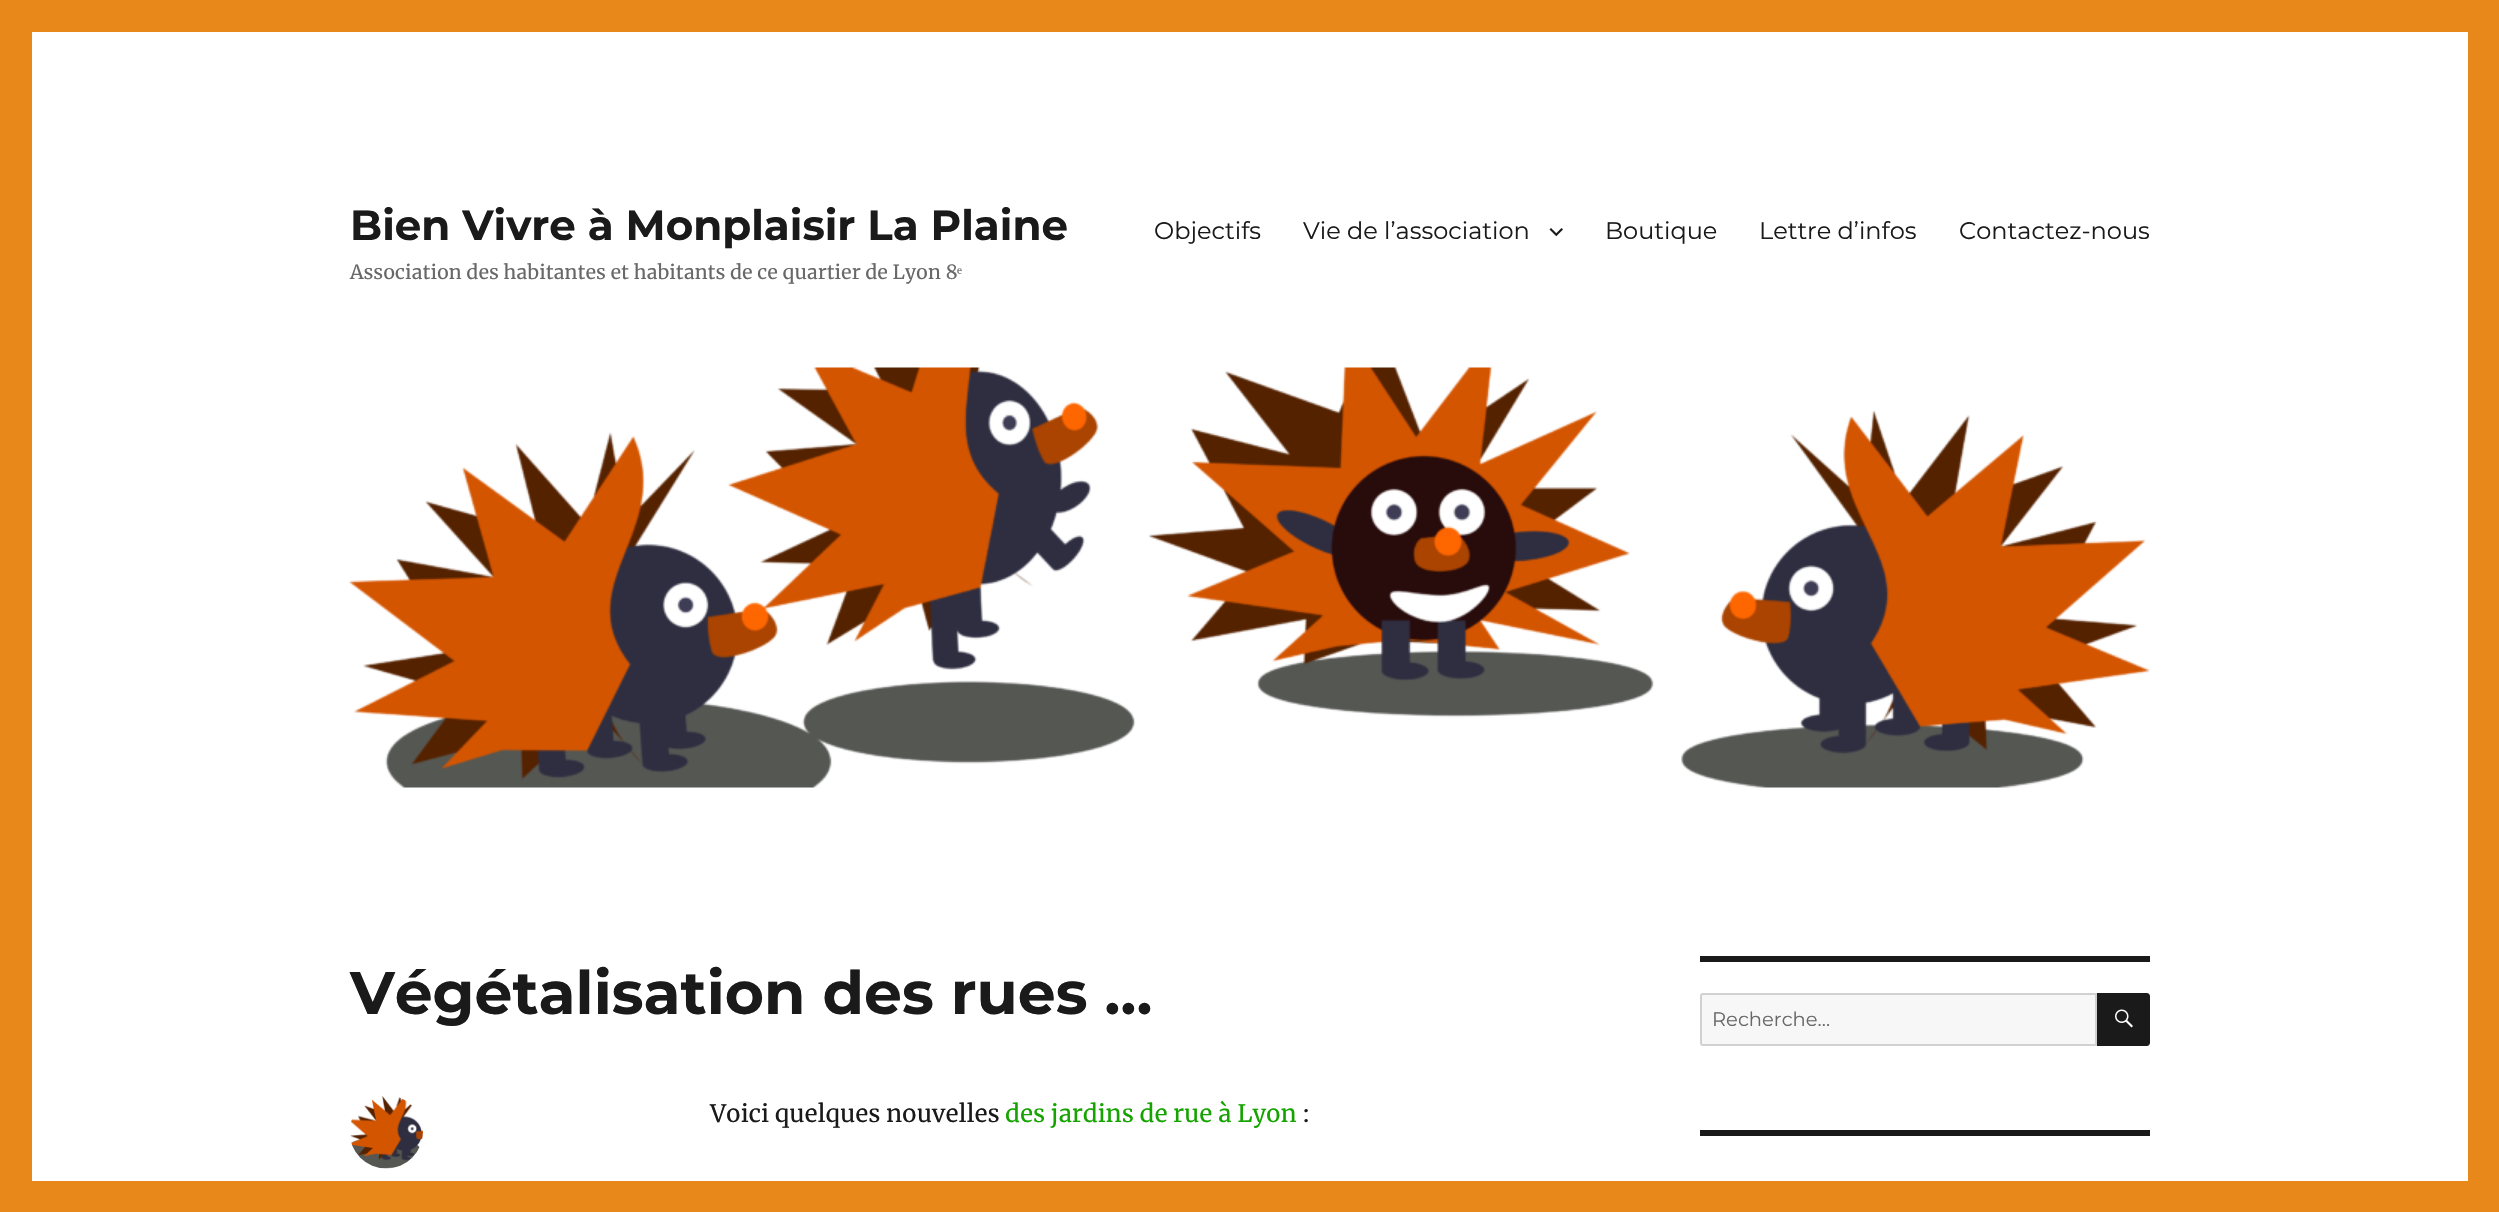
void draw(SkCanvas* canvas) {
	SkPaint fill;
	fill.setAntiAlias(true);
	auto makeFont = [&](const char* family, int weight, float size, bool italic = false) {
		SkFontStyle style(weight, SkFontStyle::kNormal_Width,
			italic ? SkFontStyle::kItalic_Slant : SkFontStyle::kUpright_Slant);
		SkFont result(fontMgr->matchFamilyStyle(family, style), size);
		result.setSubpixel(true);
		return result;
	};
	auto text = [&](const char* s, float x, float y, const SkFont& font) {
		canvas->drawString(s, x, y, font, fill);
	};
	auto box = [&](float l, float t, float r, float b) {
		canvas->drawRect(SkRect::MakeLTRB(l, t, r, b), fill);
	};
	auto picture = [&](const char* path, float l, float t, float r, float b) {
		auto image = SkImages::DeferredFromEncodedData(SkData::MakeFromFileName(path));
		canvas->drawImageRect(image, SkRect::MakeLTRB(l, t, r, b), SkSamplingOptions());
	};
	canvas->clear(0xFFE8881B);
	fill.setColor(0xFFFFFFFF);
	box(32, 32, 2468, 1181);
	picture("image0.png", 1549, 228, 1563, 237);
	picture("image1.png", 349, 367, 2150, 788);
	picture("image2.png", 350, 1096, 423, 1169);
	fill.setColor(0xFF1A1A1A);
	box(1700, 956, 2150, 962);
	fill.setColor(0xFFF7F7F7);
	canvas->drawPath(SkPathBuilder().moveTo(1703, 994).lineTo(2096, 994).lineTo(2096, 1045).lineTo(1703, 1045).cubicTo(1702, 1045, 1701, 1044, 1701, 1043).lineTo(1701, 996).cubicTo(1701, 995, 1702, 994, 1703, 994).close().detach(), fill);
	fill.setStyle(SkPaint::kStroke_Style);
	fill.setStrokeWidth(2);
	fill.setColor(0xFFD1D1D1);
	canvas->drawPath(SkPathBuilder().moveTo(1703, 994).lineTo(2096, 994).lineTo(2096, 1045).lineTo(1703, 1045).cubicTo(1702, 1045, 1701, 1044, 1701, 1043).lineTo(1701, 996).cubicTo(1701, 995, 1702, 994, 1703, 994).close().detach(), fill);
	fill.setStyle(SkPaint::kFill_Style);
	fill.setColor(0xFF1A1A1A);
	canvas->drawPath(SkPathBuilder().moveTo(2097, 993).lineTo(2147, 993).cubicTo(2148.5f, 993, 2150, 994.5f, 2150, 996).lineTo(2150, 1043).cubicTo(2150, 1044.5f, 2148.5f, 1046, 2147, 1046).lineTo(2097, 1046).close().detach(), fill);
	picture("image3.png", 2115, 1009, 2133, 1028);
	box(1700, 1130, 2150, 1136);
	auto font1 = makeFont("Montserrat", 100, 42);
	text("Bien Vivre à Monplaisir La Plaine", 350, 240, font1);
	auto font2 = makeFont("Merriweather", 400, 19.5f);
	fill.setColor(0xFF686868);
	text("Association des habitantes et habitants de ce quartier de Lyon 8", 350, 279, font2);
	auto font3 = makeFont("Liberation Serif", 400, 19.5f);
	text("ᵉ", 957, 279, font3);
	auto font4 = makeFont("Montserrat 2", 100, 24);
	fill.setColor(0xFF1A1A1A);
	text("Objectifs", 1154, 239, font4);
	text("Vie de l’association", 1303, 239, font4);
	text("Boutique", 1605, 239, font4);
	text("Lettre d’infos", 1759, 239, font4);
	text("Contactez-nous", 1959, 239, font4);
	auto font5 = makeFont("Montserrat", 100, 60);
	text("Végétalisation des rues …", 350, 1014, font5);
	auto font6 = makeFont("Merriweather", 400, 24);
	text("Voici quelques nouvelles", 710, 1122, font6);
	fill.setColor(0xFF15A300);
	text("des jardins de rue à Lyon", 1005, 1122, font6);
	fill.setColor(0xFF1A1A1A);
	text(":", 1302, 1122, font6);
	auto font7 = makeFont("Montserrat 2", 100, 19.5f);
	fill.setColor(0xFF686868);
	text("Recherche…", 1712, 1026, font7);
}
